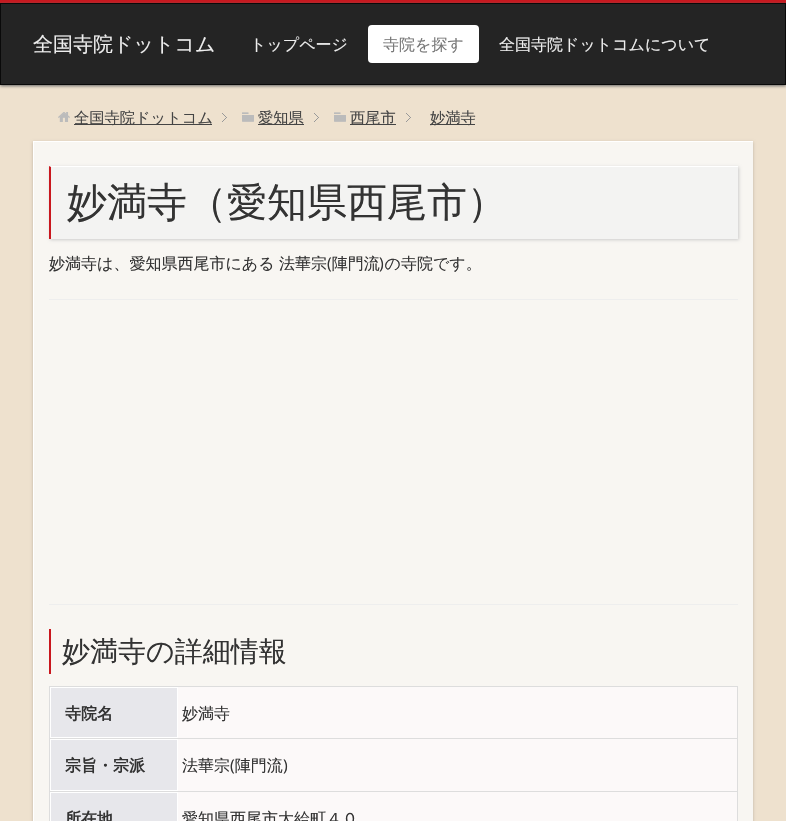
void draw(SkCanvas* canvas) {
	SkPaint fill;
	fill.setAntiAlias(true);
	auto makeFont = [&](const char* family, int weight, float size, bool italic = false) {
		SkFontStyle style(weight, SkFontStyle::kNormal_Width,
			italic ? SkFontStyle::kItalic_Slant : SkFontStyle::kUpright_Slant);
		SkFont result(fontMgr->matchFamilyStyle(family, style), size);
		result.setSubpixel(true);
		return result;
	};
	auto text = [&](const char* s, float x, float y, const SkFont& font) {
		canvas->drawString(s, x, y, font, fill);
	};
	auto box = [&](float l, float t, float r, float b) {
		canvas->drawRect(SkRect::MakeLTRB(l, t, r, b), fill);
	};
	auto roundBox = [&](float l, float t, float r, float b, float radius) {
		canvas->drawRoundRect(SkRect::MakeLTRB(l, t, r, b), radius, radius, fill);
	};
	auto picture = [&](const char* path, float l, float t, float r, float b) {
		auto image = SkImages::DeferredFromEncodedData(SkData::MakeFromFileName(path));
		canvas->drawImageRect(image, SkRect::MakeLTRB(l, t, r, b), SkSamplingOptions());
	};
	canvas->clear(0xFFEEE1CE);
	fill.setColor(0xFFC9171E);
	box(0, 0, 786, 3);
	fill.setColor(0xFF666666);
	fill.setMaskFilter(SkMaskFilter::MakeBlur(kNormal_SkBlurStyle, 1.5f));
	canvas->drawRect(SkRect::MakeLTRB(0, 4, 786, 86), fill);
	fill.setMaskFilter(nullptr);
	fill.setColor(0xFF242424);
	canvas->drawRect(SkRect::MakeLTRB(0.5f, 3.5f, 785.5f, 84.5f), fill);
	fill.setStyle(SkPaint::kStroke_Style);
	fill.setStrokeWidth(1);
	fill.setColor(0xFF090909);
	canvas->drawRect(SkRect::MakeLTRB(0.5f, 3.5f, 785.5f, 84.5f), fill);
	fill.setStyle(SkPaint::kFill_Style);
	fill.setColor(0xFFFFFFFF);
	roundBox(368, 25, 479, 63, 4);
	picture("image0.png", 222, 113, 227, 122);
	picture("image1.png", 58, 112, 70, 122);
	fill.setColor(0xFF444444);
	box(74, 124, 212, 125);
	picture("image0.png", 314, 113, 319, 122);
	picture("image2.png", 242, 112, 254, 122);
	box(258, 124, 304, 125);
	picture("image0.png", 406, 113, 411, 122);
	picture("image2.png", 334, 112, 346, 122);
	box(350, 124, 396, 125);
	box(430, 124, 475, 125);
	fill.setColor(0x33000000);
	fill.setMaskFilter(SkMaskFilter::MakeBlur(kNormal_SkBlurStyle, 1.5f));
	canvas->drawRect(SkRect::MakeLTRB(33, 142, 753, 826), fill);
	fill.setMaskFilter(nullptr);
	fill.setColor(0xFFF8F6F2);
	box(34, 142, 753, 821);
	fill.setColor(0xFFFFFFFF);
	box(33, 141, 753, 142);
	box(33, 141, 34, 821);
	fill.setColor(0xFFCCCCCC);
	fill.setMaskFilter(SkMaskFilter::MakeBlur(kNormal_SkBlurStyle, 1.5f));
	canvas->drawRect(SkRect::MakeLTRB(50, 167, 739, 240), fill);
	fill.setMaskFilter(nullptr);
	fill.setColor(0xFFF3F3F2);
	box(49, 166, 738, 239);
	fill.setColor(0xFFFFFFFF);
	canvas->drawPath(SkPathBuilder().moveTo(49, 166).lineTo(738, 166).lineTo(738, 167).lineTo(51, 167).close().detach(), fill);
	fill.setColor(0xFFC9171E);
	canvas->drawPath(SkPathBuilder().moveTo(49, 239).lineTo(49, 166).lineTo(51, 167).lineTo(51, 239).close().detach(), fill);
	fill.setColor(0xFFEEEEEE);
	box(49, 299, 738, 300);
	box(49, 604, 738, 605);
	fill.setColor(0xFFC9171E);
	box(49, 629, 51, 674);
	fill.setColor(0xFFFCF9F9);
	box(178, 687, 737, 821);
	fill.setColor(0xFFDDDDDD);
	box(49, 686, 738, 687);
	box(737, 686, 738, 738);
	box(49, 686, 50, 738);
	fill.setColor(0xFFE7E7EB);
	canvas->drawRect(SkRect::MakeLTRB(50.5f, 687.5f, 177.5f, 737.5f), fill);
	fill.setStyle(SkPaint::kStroke_Style);
	fill.setColor(0xFFFFFFFF);
	canvas->drawRect(SkRect::MakeLTRB(50.5f, 687.5f, 177.5f, 737.5f), fill);
	fill.setStyle(SkPaint::kFill_Style);
	fill.setColor(0xFFDDDDDD);
	box(49, 738, 738, 739);
	box(737, 738, 738, 791);
	box(49, 738, 50, 791);
	fill.setColor(0xFFE7E7EB);
	canvas->drawRect(SkRect::MakeLTRB(50.5f, 739.5f, 177.5f, 790.5f), fill);
	fill.setStyle(SkPaint::kStroke_Style);
	fill.setColor(0xFFFFFFFF);
	canvas->drawRect(SkRect::MakeLTRB(50.5f, 739.5f, 177.5f, 790.5f), fill);
	fill.setColor(0xFFDDDDDD);
	canvas->drawRect(SkRect::MakeLTRB(49.5f, 791.5f, 737.5f, 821.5f), fill);
	fill.setStyle(SkPaint::kFill_Style);
	fill.setColor(0xFFE7E7EB);
	canvas->drawRect(SkRect::MakeLTRB(50.5f, 792.5f, 177.5f, 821.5f), fill);
	fill.setStyle(SkPaint::kStroke_Style);
	fill.setColor(0xFFFFFFFF);
	canvas->drawRect(SkRect::MakeLTRB(50.5f, 792.5f, 177.5f, 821.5f), fill);
	auto font1 = makeFont("WenQuanYi Zen Hei", 500, 20);
	fill.setStyle(SkPaint::kFill_Style);
	fill.setColor(0xFFEEEEEE);
	text("全国寺院ドットコム", 33, 51, font1);
	auto font2 = makeFont("WenQuanYi Zen Hei", 500, 16);
	text("トップページ", 250, 50, font2);
	fill.setColor(0xFF777777);
	text("寺院を探す", 383, 50, font2);
	fill.setColor(0xFFEEEEEE);
	text("全国寺院ドットコムについて", 499, 50, font2);
	auto font3 = makeFont("WenQuanYi Zen Hei", 500, 15.25f);
	fill.setColor(0xFF444444);
	text("全国寺院ドットコム", 74, 123, font3);
	text("愛知県", 258, 123, font3);
	text("西尾市", 350, 123, font3);
	text("妙満寺", 430, 123, font3);
	auto font4 = makeFont("WenQuanYi Zen Hei", 500, 40);
	fill.setColor(0xFF333333);
	text("妙満寺（愛知県西尾市）", 67, 216, font4);
	text("妙満寺は、愛知県西尾市にある", 49, 269, font2);
	text("法華宗 陣門流 の寺院です。", 279, 269, font2);
	auto font5 = makeFont("Open Sans", 400, 16);
	text("(", 327, 269, font5);
	text(")", 379, 269, font5);
	auto font6 = makeFont("WenQuanYi Zen Hei", 500, 28);
	text("妙満寺の詳細情報", 62, 661, font6);
	auto font7 = makeFont("WenQuanYi Zen Hei", 700, 16);
	text("寺院名", 65, 719, font7);
	text("妙満寺", 182, 719, font2);
	text("宗旨・宗派", 65, 771, font7);
	text("法華宗 陣門流", 182, 771, font2);
	text("(", 230, 771, font5);
	text(")", 283, 771, font5);
	text("所在地", 65, 824, font7);
	text("愛知県西尾市大給町４０", 182, 824, font2);
}
